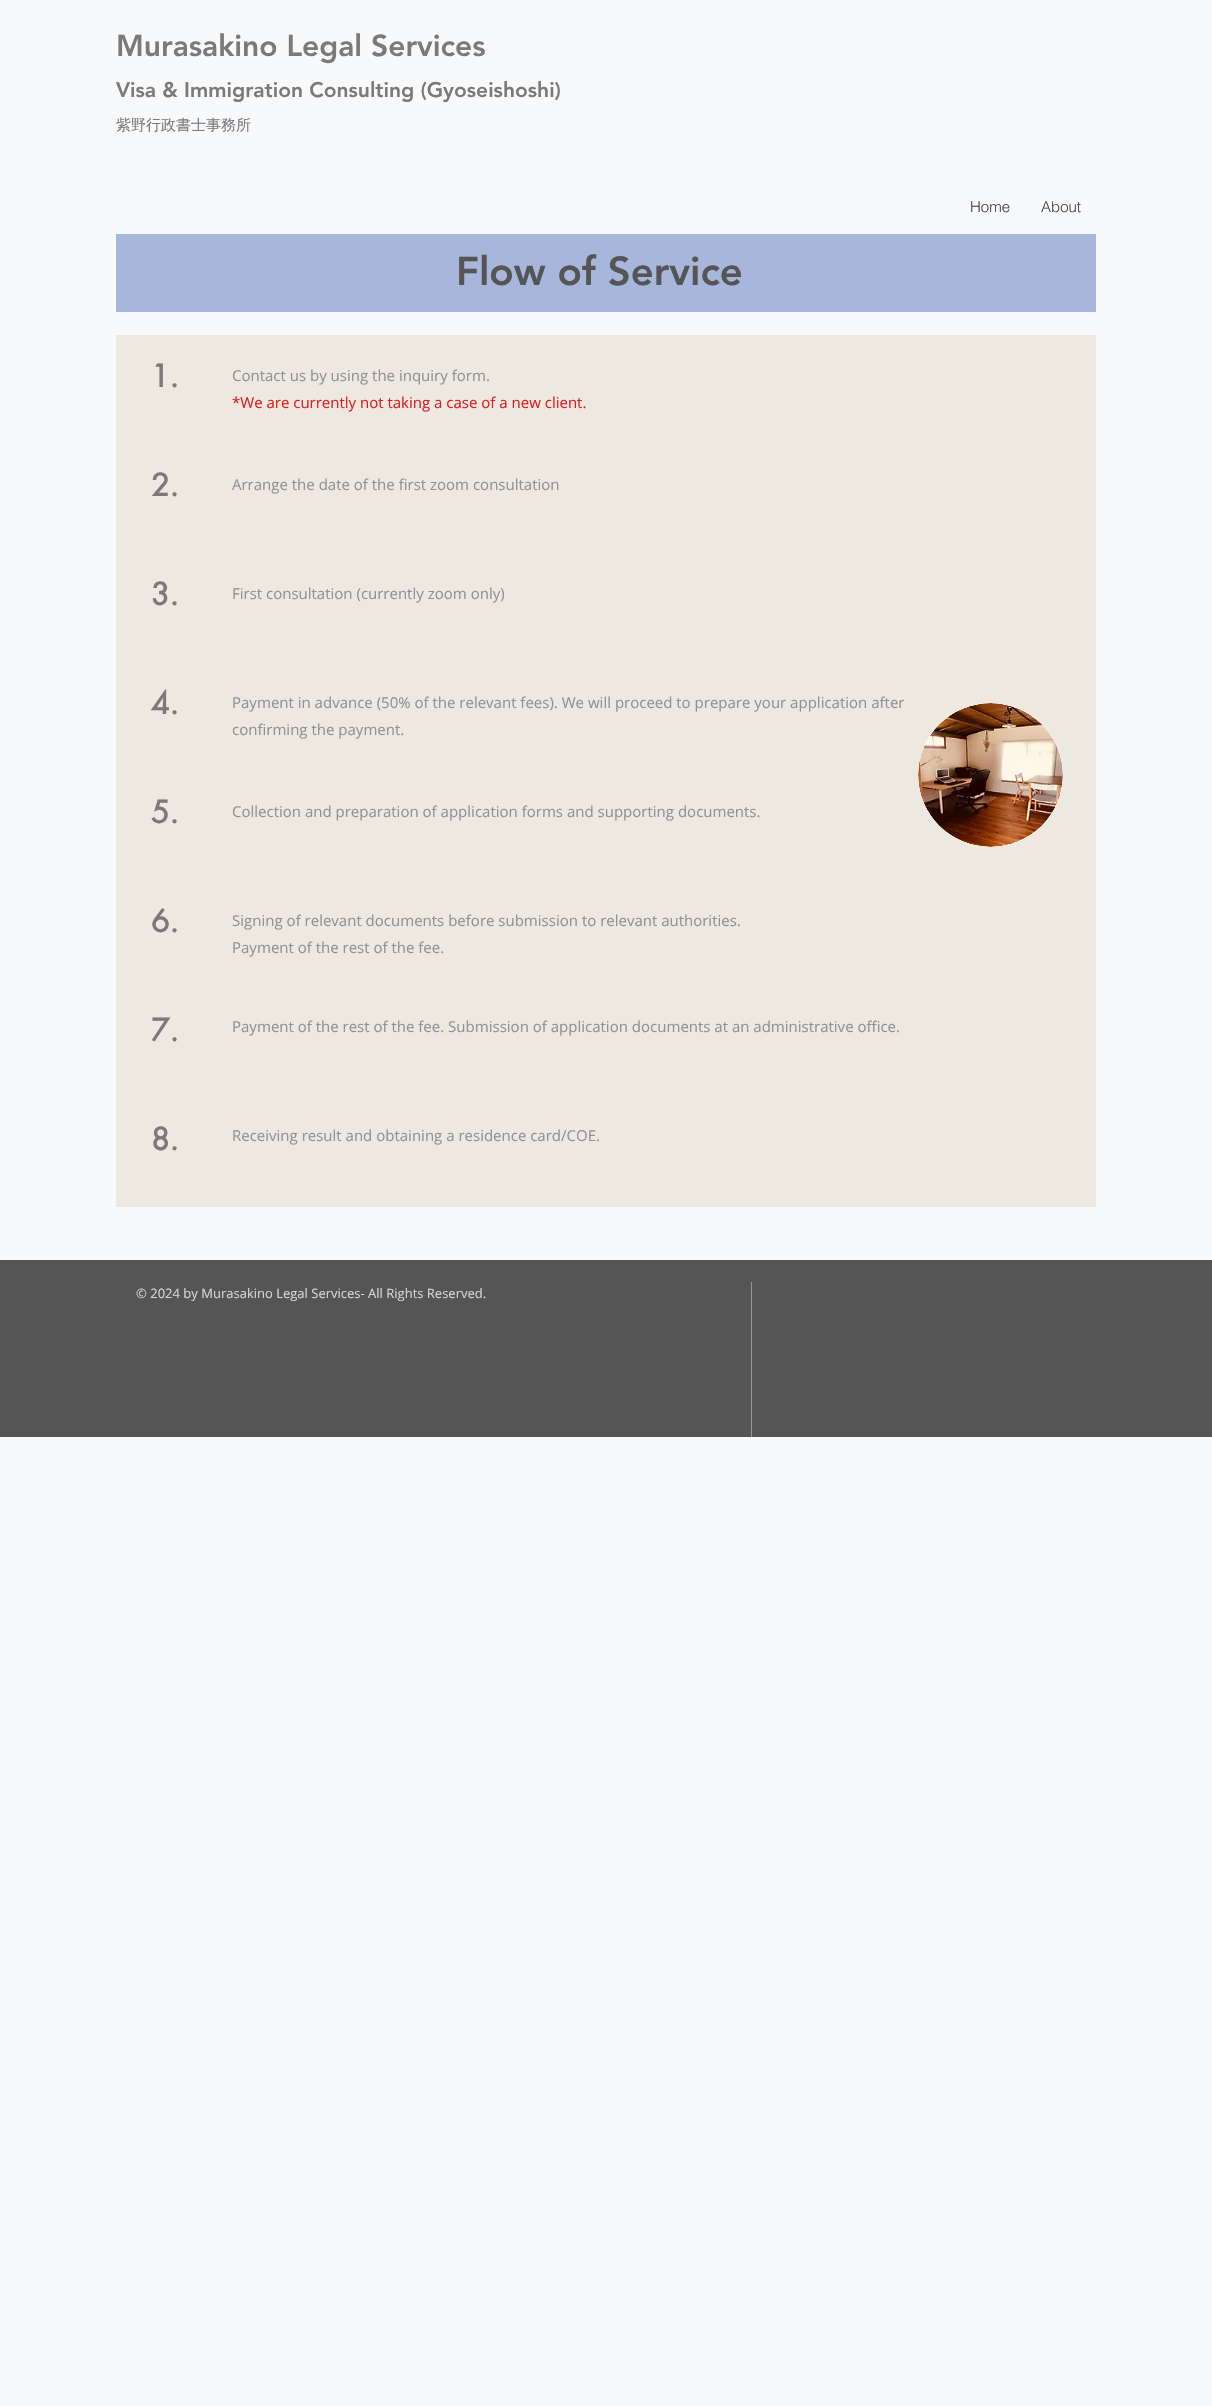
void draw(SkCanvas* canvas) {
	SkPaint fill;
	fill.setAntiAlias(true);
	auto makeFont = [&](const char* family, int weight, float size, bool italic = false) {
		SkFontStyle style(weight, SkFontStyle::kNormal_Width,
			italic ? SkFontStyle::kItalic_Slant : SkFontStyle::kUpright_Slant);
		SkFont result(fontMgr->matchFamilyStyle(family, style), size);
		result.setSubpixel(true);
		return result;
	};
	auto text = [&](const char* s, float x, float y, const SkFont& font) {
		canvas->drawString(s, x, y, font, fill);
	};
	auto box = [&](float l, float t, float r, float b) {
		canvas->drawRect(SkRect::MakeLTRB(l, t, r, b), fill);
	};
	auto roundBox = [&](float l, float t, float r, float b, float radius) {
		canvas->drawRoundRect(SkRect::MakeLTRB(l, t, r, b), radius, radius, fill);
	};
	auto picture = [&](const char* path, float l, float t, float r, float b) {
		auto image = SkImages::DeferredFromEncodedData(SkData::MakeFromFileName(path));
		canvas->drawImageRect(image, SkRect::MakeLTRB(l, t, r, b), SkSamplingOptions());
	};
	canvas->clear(0xFFF8F9FB);
	fill.setColor(0xFFA7B7DB);
	box(116, 234, 1096, 312);
	fill.setColor(0xFFEDE9E1);
	box(116, 335, 1096, 1207);
	fill.setColor(0xFFFFFFFF);
	roundBox(918, 703, 1063, 847, 72);
	picture("image0.png", 918, 703, 1063, 847);
	fill.setColor(0xFF555555);
	box(0, 1260, 1212, 1437);
	fill.setColor(0xFF959697);
	box(751, 1282, 752, 1437);
	auto font1 = makeFont("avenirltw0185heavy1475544", 900, 30);
	fill.setColor(0xFF7D7979);
	text("Murasakino Legal Services", 116, 56, font1);
	auto font2 = makeFont("avenirltw0185heavy1475544", 900, 21);
	text("Visa & Immigration Consulting (Gyoseishoshi)", 116, 97, font2);
	auto font3 = makeFont("WenQuanYi Zen Hei", 500, 15);
	text("紫野行政書士事務所", 116, 130, font3);
	auto font4 = makeFont("helvetica", 300, 15);
	fill.setColor(0xFF444444);
	text("Home", 970, 212, font4);
	text("About", 1041, 212, font4);
	auto font5 = makeFont("avenirltw0185heavy1475544", 900, 40);
	fill.setColor(0xFF555555);
	text("Flow of Service", 456, 285, font5);
	auto font6 = makeFont("futura", 700, 30);
	fill.setColor(0xFF7D7979);
	text("1.", 151, 387, font6);
	auto font7 = makeFont("Open Sans", 400, 15);
	fill.setColor(0xFF919191);
	text("Contact us by using the inquiry form.", 232, 381, font7);
	fill.setColor(0xFFE21C21);
	text("*We are currently not taking a case of a new client.", 232, 408, font7);
	fill.setColor(0xFF7D7979);
	text("2.", 151, 496, font6);
	fill.setColor(0xFF919191);
	text("Arrange the date of the first zoom consultation", 232, 490, font7);
	fill.setColor(0xFF7D7979);
	text("3.", 151, 605, font6);
	fill.setColor(0xFF919191);
	text("First consultation (currently zoom only)", 232, 599, font7);
	fill.setColor(0xFF7D7979);
	text("4.", 151, 714, font6);
	fill.setColor(0xFF919191);
	text("Payment in advance (50% of the relevant fees). We will proceed to prepare your application after", 232, 708, font7);
	text("confirming the payment.", 232, 735, font7);
	fill.setColor(0xFF7D7979);
	text("5.", 151, 823, font6);
	fill.setColor(0xFF919191);
	text("Collection and preparation of application forms and supporting documents.", 232, 817, font7);
	fill.setColor(0xFF7D7979);
	text("6.", 151, 932, font6);
	fill.setColor(0xFF919191);
	text("Signing of relevant documents before submission to relevant authorities.", 232, 926, font7);
	text("Payment of the rest of the fee.", 232, 953, font7);
	fill.setColor(0xFF7D7979);
	text("7.", 151, 1041, font6);
	fill.setColor(0xFF919191);
	text("Payment of the rest of the fee. Submission of application documents at an administrative office.", 232, 1032, font7);
	fill.setColor(0xFF7D7979);
	text("8.", 151, 1150, font6);
	fill.setColor(0xFF919191);
	text("Receiving result and obtaining a residence card/COE.", 232, 1141, font7);
	auto font8 = makeFont("Open Sans", 400, 13);
	fill.setColor(0xFFD5D6D9);
	text("© 2024 by Murasakino Legal Services- All Rights Reserved.", 136, 1298, font8);
}
